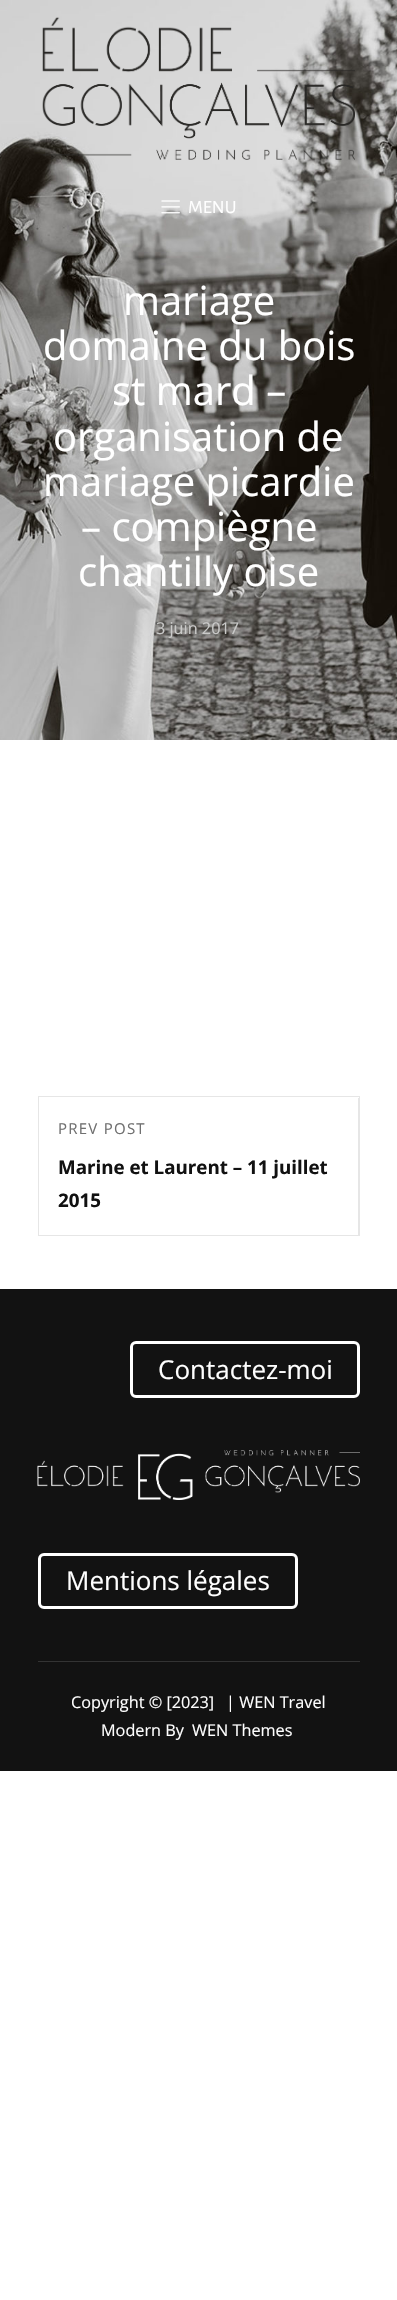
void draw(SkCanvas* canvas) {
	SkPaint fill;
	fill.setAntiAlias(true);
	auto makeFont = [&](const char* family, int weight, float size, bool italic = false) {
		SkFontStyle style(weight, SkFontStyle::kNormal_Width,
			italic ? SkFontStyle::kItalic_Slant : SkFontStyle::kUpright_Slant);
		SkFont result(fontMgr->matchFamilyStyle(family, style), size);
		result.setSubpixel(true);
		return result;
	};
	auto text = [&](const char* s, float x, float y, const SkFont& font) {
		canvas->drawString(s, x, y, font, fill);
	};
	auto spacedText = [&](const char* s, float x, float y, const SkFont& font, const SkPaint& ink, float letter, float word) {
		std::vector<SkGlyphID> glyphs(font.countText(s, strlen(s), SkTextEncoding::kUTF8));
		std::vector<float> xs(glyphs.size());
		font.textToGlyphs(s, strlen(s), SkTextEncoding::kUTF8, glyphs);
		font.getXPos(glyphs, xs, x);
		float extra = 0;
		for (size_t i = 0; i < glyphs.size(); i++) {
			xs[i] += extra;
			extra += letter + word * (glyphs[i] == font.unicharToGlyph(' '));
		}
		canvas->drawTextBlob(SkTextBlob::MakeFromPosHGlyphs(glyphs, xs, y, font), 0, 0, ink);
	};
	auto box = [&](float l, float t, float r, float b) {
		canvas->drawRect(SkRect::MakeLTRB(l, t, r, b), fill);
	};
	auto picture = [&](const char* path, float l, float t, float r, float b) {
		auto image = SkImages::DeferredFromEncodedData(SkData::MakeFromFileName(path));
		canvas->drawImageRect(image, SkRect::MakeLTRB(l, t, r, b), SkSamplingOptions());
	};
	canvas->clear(0xFFFFFFFF);
	picture("image2.png", 0, 0, 397, 740);
	picture("image0.png", 42, 17, 355, 160);
	picture("image1.png", 161, 200, 180, 214);
	fill.setStyle(SkPaint::kStroke_Style);
	fill.setStrokeWidth(1);
	fill.setColor(0xFFE6E6E6);
	canvas->drawRect(SkRect::MakeLTRB(38.5f, 1096.5f, 359.5f, 1235.5f), fill);
	fill.setStyle(SkPaint::kFill_Style);
	box(358, 1098, 359, 1235);
	fill.setColor(0xFF121212);
	box(0, 1289, 397, 1771);
	fill.setStyle(SkPaint::kStroke_Style);
	fill.setStrokeWidth(3);
	fill.setColor(0xFFFFFFFF);
	canvas->drawRoundRect(SkRect::MakeLTRB(131.5f, 1342.5f, 358.5f, 1396.5f), 4.5f, 4.5f, fill);
	picture("image3.png", 37, 1450, 360, 1500);
	canvas->drawRoundRect(SkRect::MakeLTRB(39.5f, 1554.5f, 296.5f, 1607.5f), 4.5f, 4.5f, fill);
	fill.setStyle(SkPaint::kFill_Style);
	fill.setColor(0xFF333333);
	box(38, 1661, 360, 1662);
	auto font1 = makeFont("Alegreya Sans", 400, 18.75f);
	fill.setColor(0xFFFFFFFF);
	text("MENU", 188, 213, font1);
	auto font2 = makeFont("Open Sans", 400, 40);
	text("mariage", 123, 315, font2);
	text("domaine du bois", 43, 360, font2);
	text("st mard –", 112, 405, font2);
	text("organisation de", 53, 451, font2);
	text("mariage picardie", 43, 496, font2);
	text("– compiègne", 81, 541, font2);
	text("chantilly oise", 78, 586, font2);
	auto font3 = makeFont("Open Sans", 400, 16.25f);
	fill.setColor(0xFFCACAC9);
	text("3 juin 2017", 156, 634, font3);
	auto font4 = makeFont("Open Sans", 400, 15);
	fill.setColor(0xFF707070);
	spacedText("PREV POST", 58, 1134, font4, fill, 1.25f, 0);
	auto font5 = makeFont("Open Sans", 700, 18.75f);
	fill.setColor(0xFF111111);
	text("Marine et Laurent – 11 juillet", 58, 1174, font5);
	text("2015", 58, 1207, font5);
	auto font6 = makeFont("Open Sans", 400, 26);
	fill.setColor(0xFFFFFFFF);
	text("Contactez-moi", 158, 1379, font6);
	text("Mentions légales", 66, 1590, font6);
	text("Copyright © [2023]", 71, 1708, font3);
	text("| WEN Travel", 226, 1708, font3);
	text("Modern By", 101, 1736, font3);
	text("WEN Themes", 192, 1736, font3);
}
